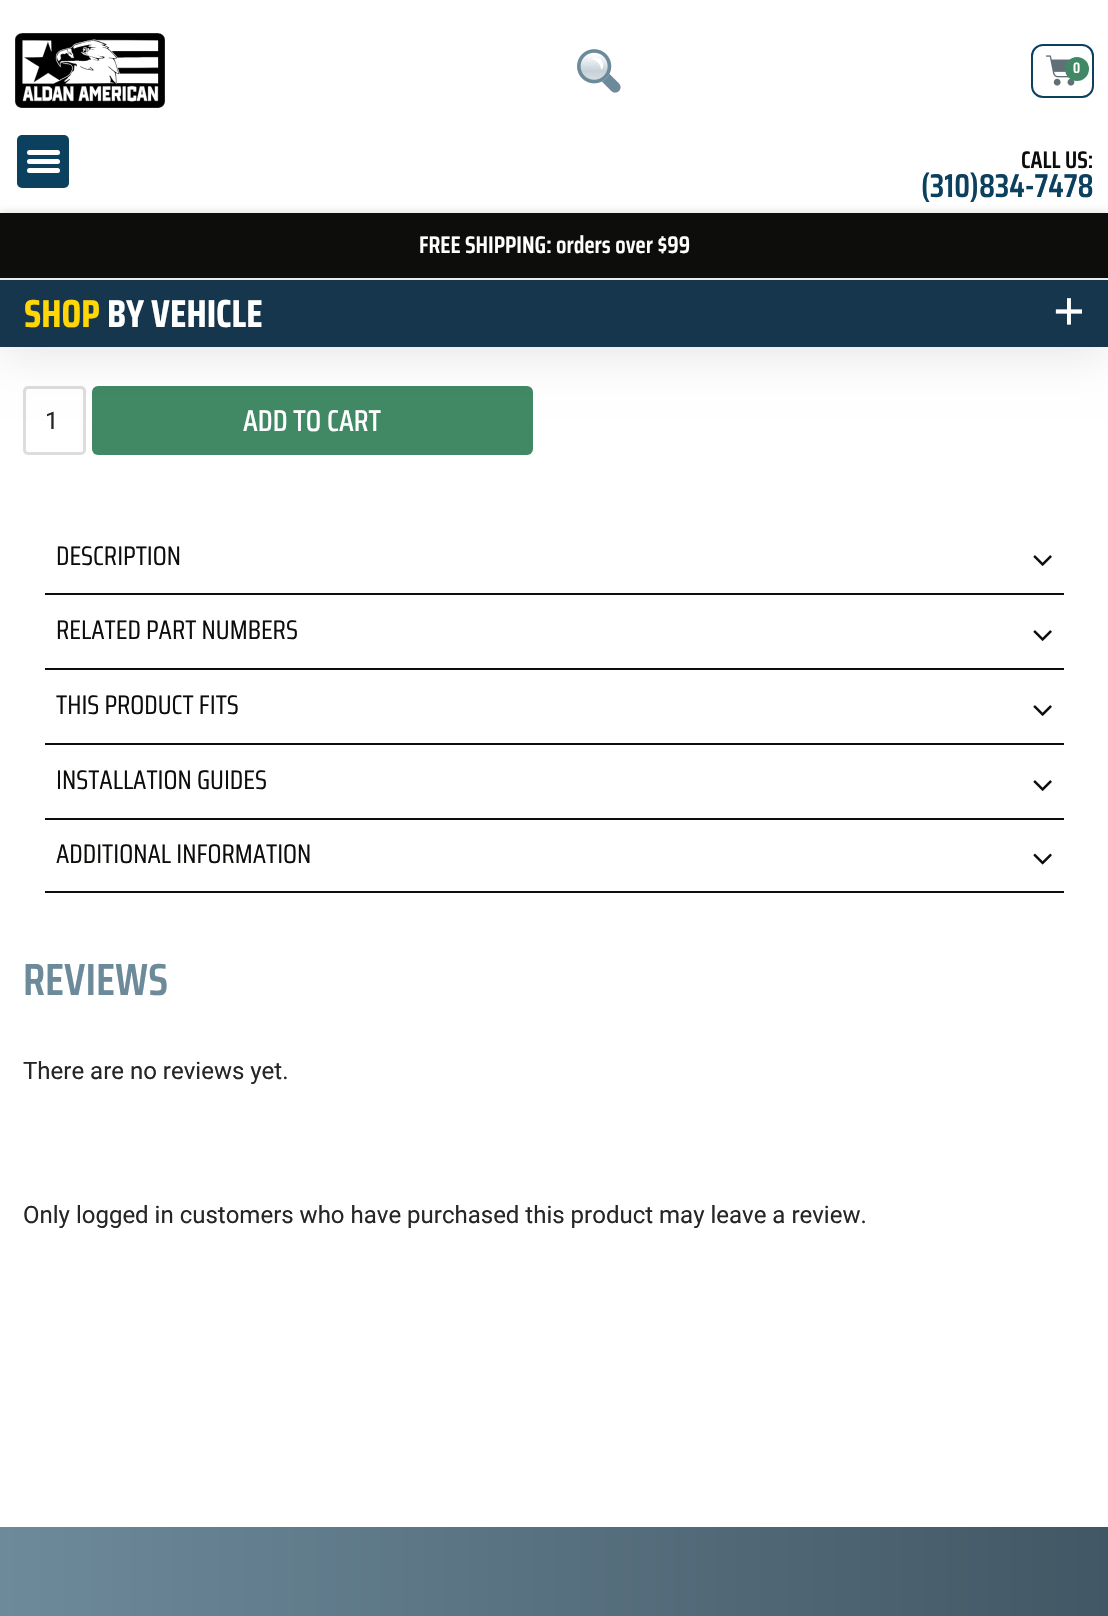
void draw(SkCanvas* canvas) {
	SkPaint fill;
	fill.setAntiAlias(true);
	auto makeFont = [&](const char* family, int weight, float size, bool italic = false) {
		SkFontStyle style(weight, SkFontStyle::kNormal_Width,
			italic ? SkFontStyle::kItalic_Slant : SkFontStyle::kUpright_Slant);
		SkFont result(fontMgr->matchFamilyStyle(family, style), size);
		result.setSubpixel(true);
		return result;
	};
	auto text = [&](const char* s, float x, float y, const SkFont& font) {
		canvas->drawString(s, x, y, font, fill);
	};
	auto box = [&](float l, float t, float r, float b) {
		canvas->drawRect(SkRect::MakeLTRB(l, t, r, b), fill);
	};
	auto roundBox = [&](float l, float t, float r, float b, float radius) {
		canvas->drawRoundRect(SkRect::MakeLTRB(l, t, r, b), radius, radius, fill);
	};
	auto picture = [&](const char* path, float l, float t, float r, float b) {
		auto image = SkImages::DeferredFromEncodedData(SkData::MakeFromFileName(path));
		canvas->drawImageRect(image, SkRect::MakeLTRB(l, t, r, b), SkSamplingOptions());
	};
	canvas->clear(0xFFFFFFFF);
	fill.setStyle(SkPaint::kStroke_Style);
	fill.setStrokeWidth(3);
	fill.setColor(0xFFDDDDDD);
	canvas->drawRoundRect(SkRect::MakeLTRB(24.5f, 387.5f, 84.5f, 453.5f), 3.5f, 3.5f, fill);
	fill.setStyle(SkPaint::kFill_Style);
	fill.setColor(0xFF418965);
	roundBox(92, 386, 533, 455, 6);
	fill.setColor(0x1A000000);
	fill.setMaskFilter(SkMaskFilter::MakeBlur(kNormal_SkBlurStyle, 22.5f));
	canvas->drawRect(SkRect::MakeLTRB(0, 8, 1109, 354), fill);
	fill.setMaskFilter(nullptr);
	fill.setColor(0xFFFFFFFF);
	box(0, 0, 1108, 213);
	picture("image0.png", 15, 33, 165, 108);
	picture("image1.png", 577, 49, 621, 93);
	fill.setStyle(SkPaint::kStroke_Style);
	fill.setStrokeWidth(2);
	fill.setColor(0xFF0B405F);
	canvas->drawRoundRect(SkRect::MakeLTRB(1032, 45, 1093, 97), 11, 11, fill);
	picture("image2.png", 1046, 55, 1075, 86);
	fill.setStyle(SkPaint::kFill_Style);
	fill.setColor(0xFF418965);
	canvas->drawCircle(1077, 69, 12, fill);
	fill.setColor(0x26000000);
	fill.setMaskFilter(SkMaskFilter::MakeBlur(kNormal_SkBlurStyle, 4.5f));
	canvas->drawRect(SkRect::MakeLTRB(0, 213, 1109, 278), fill);
	fill.setMaskFilter(nullptr);
	fill.setColor(0xFF0D0E0C);
	box(0, 213, 1108, 278);
	fill.setColor(0xFF16364D);
	box(0, 280, 1108, 347);
	fill.setColor(0xFFEBEBEB);
	box(0, 278, 1108, 280);
	fill.setColor(0xFF0D0E0C);
	box(45, 593, 1064, 595);
	picture("image3.png", 1033, 555, 1052, 566);
	box(45, 668, 1064, 670);
	picture("image3.png", 1033, 630, 1052, 641);
	box(45, 743, 1064, 745);
	picture("image3.png", 1033, 705, 1052, 716);
	box(45, 818, 1064, 820);
	picture("image3.png", 1033, 780, 1052, 791);
	box(45, 891, 1064, 893);
	picture("image4.png", 1033, 853, 1052, 865);
	{
		const SkColor colors[] = {0xFF6D8A9B, 0xFF425764};
		const float stops[] = {0, 1};
		const SkPoint ends[] = {{0, 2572}, {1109, 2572}};
		fill.setShader(SkGradientShader::MakeLinear(ends, colors, stops, 2, SkTileMode::kClamp));
		fill.setAlpha(255);
	}
	box(0, 1527, 1108, 1616);
	fill.setShader(nullptr);
	fill.setColor(0xFF0B405F);
	roundBox(17, 135, 69, 188, 5);
	fill.setColor(0xFFFFFFFF);
	roundBox(27, 159, 60, 164, 2.5f);
	roundBox(27, 150, 60, 155, 2.5f);
	roundBox(27, 168, 60, 173, 2.5f);
	auto font1 = makeFont("Saira Condensed", 600, 15);
	text("0", 1073, 73, font1);
	auto font2 = makeFont("Saira Condensed", 600, 24);
	fill.setColor(0xFF0D0E0C);
	text("CALL US:", 1021, 168, font2);
	auto font3 = makeFont("Saira Condensed", 600, 33);
	fill.setColor(0xFF0B405F);
	text("(310)834-7478", 921, 197, font3);
	fill.setColor(0xFFFFFFFF);
	text("FREE SHIPPING: orders over $99", 419, 253, font2);
	auto font4 = makeFont("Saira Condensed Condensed", 700, 39);
	fill.setColor(0xFFFFD708);
	text("SHOP", 24, 327, font4);
	fill.setColor(0xFFFFFFFF);
	text("BY VEHICLE", 107, 327, font4);
	auto font5 = makeFont("Liberation Serif", 700, 56);
	text("+", 1053, 330, font5);
	auto font6 = makeFont("Roboto", 400, 24);
	fill.setColor(0xFF272626);
	text("1", 45, 429, font6);
	auto font7 = makeFont("Saira Condensed", 500, 30);
	fill.setColor(0xFFFFFFFF);
	text("ADD TO CART", 243, 431, font7);
	auto font8 = makeFont("Saira Condensed", 400, 27);
	fill.setColor(0xFF0D0E0C);
	text("DESCRIPTION", 56, 565, font8);
	text("RELATED PART NUMBERS", 56, 639, font8);
	text("THIS PRODUCT FITS", 56, 714, font8);
	text("INSTALLATION GUIDES", 56, 789, font8);
	text("ADDITIONAL INFORMATION", 56, 863, font8);
	auto font9 = makeFont("Saira Condensed", 600, 45);
	fill.setColor(0xFF6D8A9B);
	text("REVIEWS", 23, 995, font9);
	fill.setColor(0xFF272626);
	text("There are no reviews yet.", 23, 1079, font6);
	text("Only logged in customers who have purchased this product may leave a review.", 23, 1223, font6);
}
